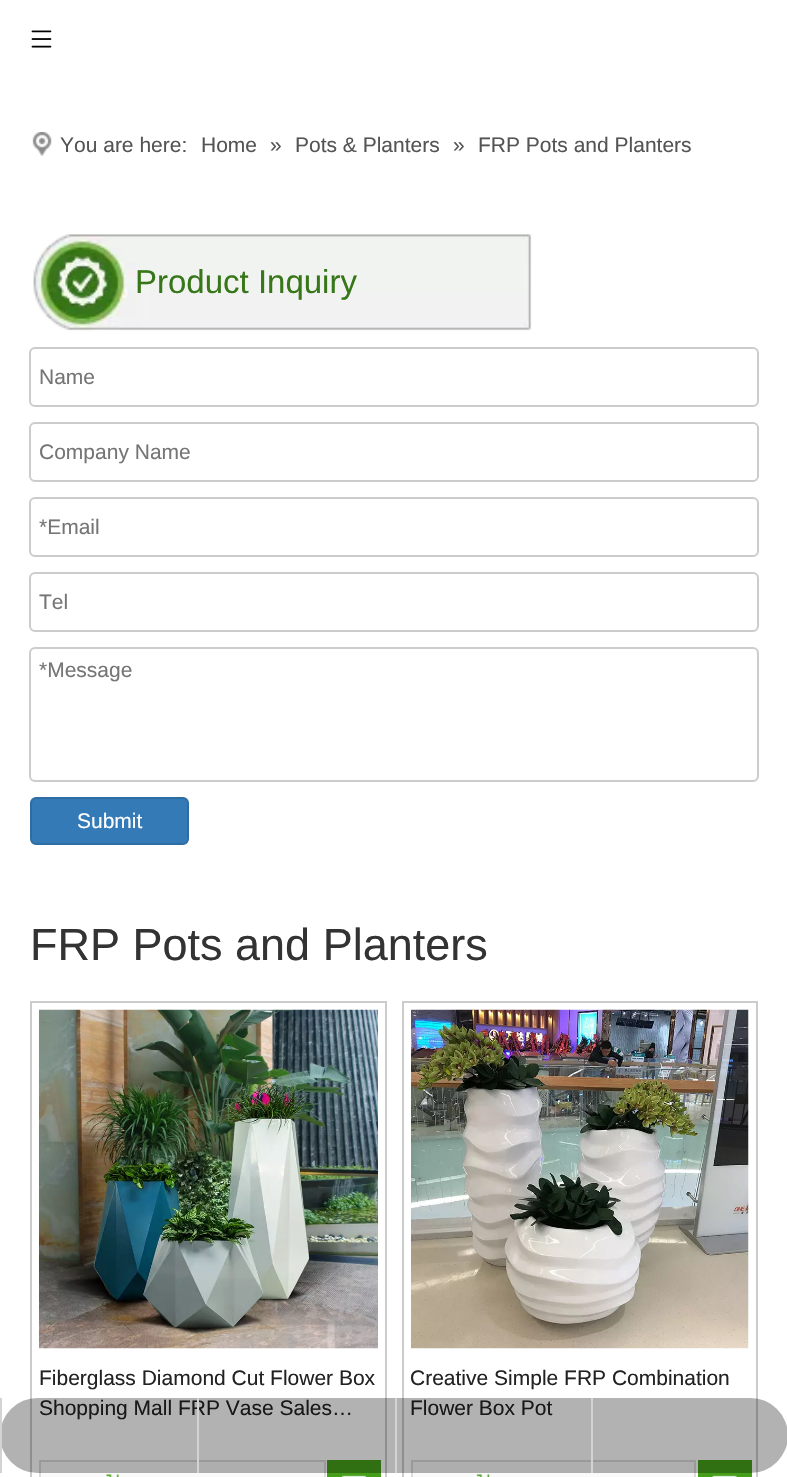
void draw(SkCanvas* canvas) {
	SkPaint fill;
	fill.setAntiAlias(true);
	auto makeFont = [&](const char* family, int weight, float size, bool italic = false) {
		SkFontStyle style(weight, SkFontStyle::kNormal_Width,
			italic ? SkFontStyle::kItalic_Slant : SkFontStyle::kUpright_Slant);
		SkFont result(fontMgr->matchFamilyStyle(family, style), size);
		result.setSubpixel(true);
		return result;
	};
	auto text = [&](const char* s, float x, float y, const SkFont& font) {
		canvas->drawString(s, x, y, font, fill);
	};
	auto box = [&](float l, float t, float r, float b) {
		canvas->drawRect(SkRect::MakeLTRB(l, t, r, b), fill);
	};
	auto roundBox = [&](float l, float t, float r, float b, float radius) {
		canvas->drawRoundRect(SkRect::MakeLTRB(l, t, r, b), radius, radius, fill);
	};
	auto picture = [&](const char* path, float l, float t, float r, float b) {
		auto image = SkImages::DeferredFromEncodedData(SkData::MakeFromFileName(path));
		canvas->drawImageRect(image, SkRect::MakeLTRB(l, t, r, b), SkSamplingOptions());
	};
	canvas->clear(0xFFFFFFFF);
	picture("image0.png", 31, 30, 52, 48);
	picture("image1.png", 32, 132, 52, 156);
	picture("image2.png", 33, 234, 532, 331);
	fill.setStyle(SkPaint::kStroke_Style);
	fill.setStrokeWidth(2);
	fill.setColor(0xFFCCCCCC);
	canvas->drawRoundRect(SkRect::MakeLTRB(30, 348, 758, 406), 5, 5, fill);
	canvas->drawRoundRect(SkRect::MakeLTRB(30, 423, 758, 481), 5, 5, fill);
	canvas->drawRoundRect(SkRect::MakeLTRB(30, 498, 758, 556), 5, 5, fill);
	canvas->drawRoundRect(SkRect::MakeLTRB(30, 573, 758, 631), 5, 5, fill);
	canvas->drawRoundRect(SkRect::MakeLTRB(30, 648, 758, 781), 5, 5, fill);
	fill.setStyle(SkPaint::kFill_Style);
	fill.setColor(0xFF337AB7);
	canvas->drawRoundRect(SkRect::MakeLTRB(31, 798, 188, 844), 5, 5, fill);
	fill.setStyle(SkPaint::kStroke_Style);
	fill.setColor(0xFF2E6DA4);
	canvas->drawRoundRect(SkRect::MakeLTRB(31, 798, 188, 844), 5, 5, fill);
	fill.setColor(0xFFCCCCCC);
	canvas->drawRect(SkRect::MakeLTRB(31, 1002, 386, 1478), fill);
	picture("image3.png", 39, 1009, 378, 1349);
	fill.setStyle(SkPaint::kFill_Style);
	fill.setColor(0xFFFAFAFA);
	canvas->drawRect(SkRect::MakeLTRB(40, 1461, 325, 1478), fill);
	fill.setStyle(SkPaint::kStroke_Style);
	fill.setColor(0xFFDCDCDC);
	canvas->drawRect(SkRect::MakeLTRB(40, 1461, 325, 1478), fill);
	picture("image4.png", 106, 1474, 119, 1477);
	fill.setStyle(SkPaint::kFill_Style);
	fill.setColor(0xFF469F1A);
	box(327, 1460, 381, 1477);
	picture("image5.png", 341, 1475, 367, 1477);
	fill.setStyle(SkPaint::kStroke_Style);
	fill.setColor(0xFFCCCCCC);
	canvas->drawRect(SkRect::MakeLTRB(403, 1002, 757, 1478), fill);
	picture("image6.png", 411, 1009, 749, 1349);
	fill.setStyle(SkPaint::kFill_Style);
	fill.setColor(0xFFFAFAFA);
	canvas->drawRect(SkRect::MakeLTRB(412, 1461, 695, 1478), fill);
	fill.setStyle(SkPaint::kStroke_Style);
	fill.setColor(0xFFDCDCDC);
	canvas->drawRect(SkRect::MakeLTRB(412, 1461, 695, 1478), fill);
	picture("image7.png", 476, 1474, 490, 1477);
	fill.setStyle(SkPaint::kFill_Style);
	fill.setColor(0xFF469F1A);
	box(698, 1460, 752, 1477);
	picture("image8.png", 712, 1475, 737, 1477);
	auto font1 = makeFont("Liberation Sans", 400, 21);
	fill.setColor(0xFF545454);
	text("You are here:", 60, 152, font1);
	text("Home", 201, 152, font1);
	text("»", 270, 152, font1);
	text("Pots & Planters", 295, 152, font1);
	text("»", 453, 152, font1);
	text("FRP Pots and Planters", 478, 152, font1);
	auto font2 = makeFont("Liberation Sans", 400, 33);
	fill.setColor(0xFF377619);
	text("Product Inquiry", 135, 293, font2);
	fill.setColor(0xFF757575);
	text("Name", 39, 384, font1);
	text("Company Name", 39, 459, font1);
	text("*Email", 39, 534, font1);
	text("Tel", 39, 609, font1);
	text("*Message", 39, 677, font1);
	fill.setColor(0xFFFFFFFF);
	text("Submit", 77, 828, font1);
	auto font3 = makeFont("Liberation Sans", 400, 45);
	fill.setColor(0xFF333333);
	text("FRP Pots and Planters", 30, 960, font3);
	fill.setColor(0xFF222222);
	text("Fiberglass Diamond Cut Flower Box", 39, 1385, font1);
	text("Shopping Mall FRP Vase Sales…", 39, 1415, font1);
	text("Creative Simple FRP Combination", 410, 1385, font1);
	text("Flower Box Pot", 410, 1415, font1);
	fill.setColor(0x4D000000);
	roundBox(0, 1398, 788, 1473, 37.5f);
	fill.setColor(0xFFD3D3D3);
	box(0, 1398, 2, 1473);
	box(197, 1398, 199, 1473);
	box(395, 1398, 397, 1473);
	box(591, 1398, 593, 1473);
}
